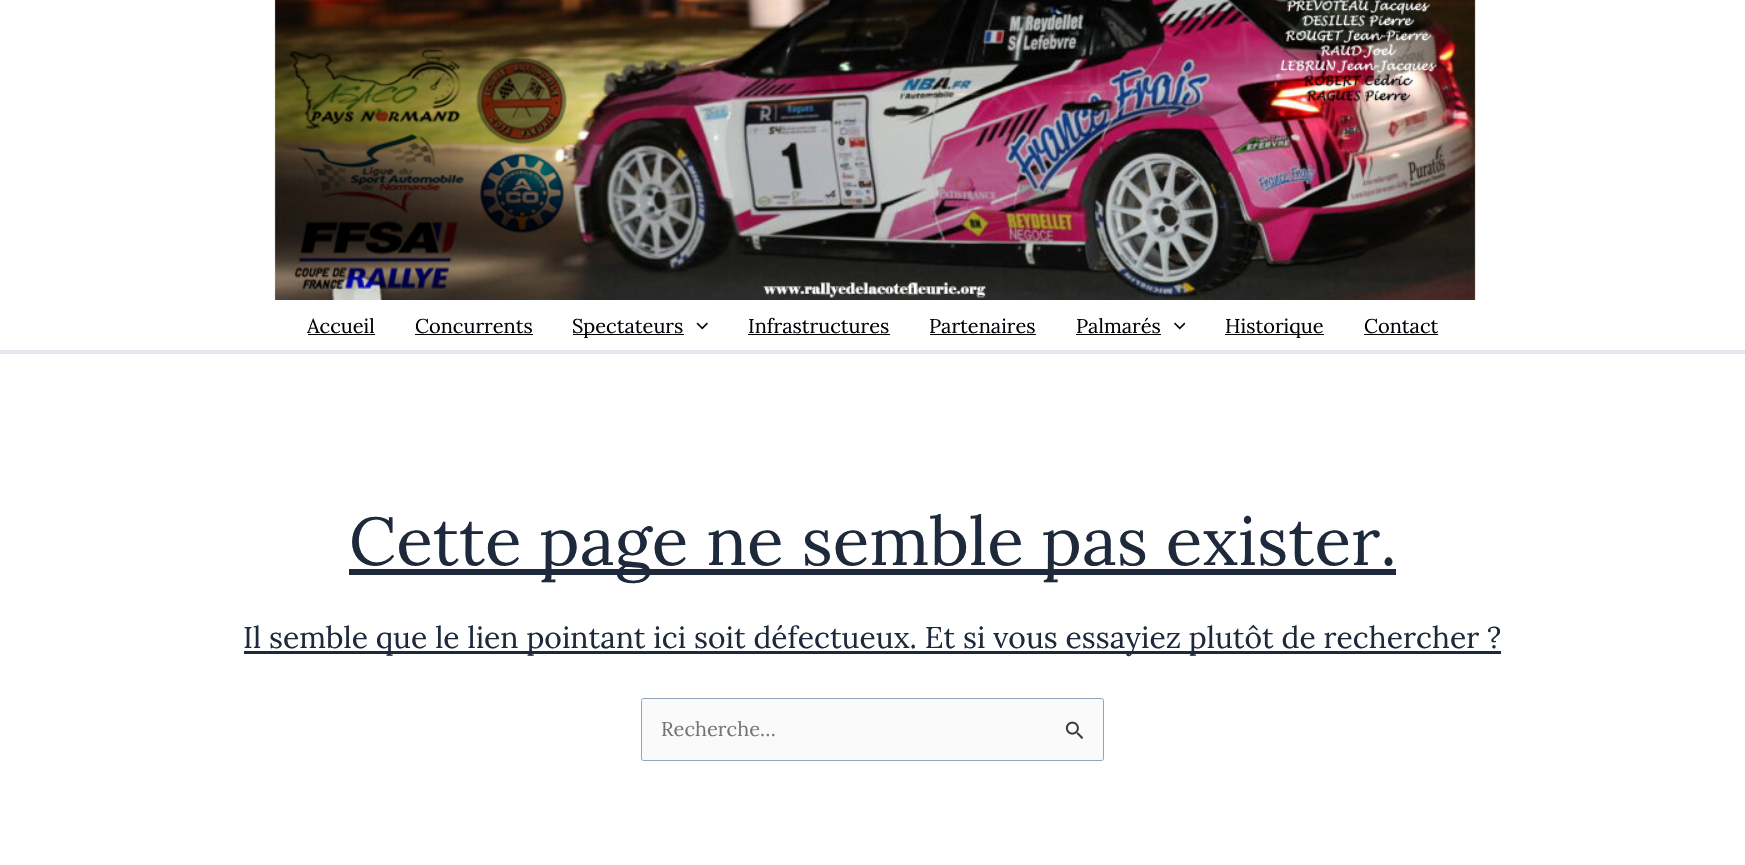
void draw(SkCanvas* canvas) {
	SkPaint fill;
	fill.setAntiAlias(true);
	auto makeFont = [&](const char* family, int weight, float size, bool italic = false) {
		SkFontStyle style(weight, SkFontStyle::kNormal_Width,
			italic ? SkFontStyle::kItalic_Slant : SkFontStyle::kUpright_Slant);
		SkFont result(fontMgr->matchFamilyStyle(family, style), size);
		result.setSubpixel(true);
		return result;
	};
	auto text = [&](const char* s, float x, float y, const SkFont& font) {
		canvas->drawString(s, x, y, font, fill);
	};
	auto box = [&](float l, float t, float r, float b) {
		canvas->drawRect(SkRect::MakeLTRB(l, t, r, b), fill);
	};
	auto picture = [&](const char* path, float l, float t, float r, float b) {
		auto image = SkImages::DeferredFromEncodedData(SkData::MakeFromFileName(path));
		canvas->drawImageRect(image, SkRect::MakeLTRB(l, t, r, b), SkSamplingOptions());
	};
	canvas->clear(0xFFFFFFFF);
	picture("image0.png", 274, 0, 1476, 300);
	fill.setColor(0xFFE2E8F0);
	box(0, 350, 1745, 354);
	fill.setColor(0xFF000206);
	box(308, 334, 375, 335);
	box(415, 334, 533, 335);
	box(573, 334, 684, 335);
	picture("image1.png", 696, 322, 708, 330);
	box(748, 334, 890, 335);
	box(930, 334, 1036, 335);
	box(1076, 334, 1161, 335);
	picture("image2.png", 1174, 322, 1185, 330);
	box(1225, 334, 1324, 335);
	box(1364, 334, 1438, 335);
	fill.setColor(0xFF1E293B);
	box(349, 569, 1396, 575);
	box(244, 651, 1501, 654);
	fill.setColor(0xFFFAFAFA);
	canvas->drawRoundRect(SkRect::MakeLTRB(641.5f, 698.5f, 1103.5f, 760.5f), 2, 2, fill);
	fill.setStyle(SkPaint::kStroke_Style);
	fill.setStrokeWidth(1);
	fill.setColor(0xFF94A3B8);
	canvas->drawRoundRect(SkRect::MakeLTRB(641.5f, 698.5f, 1103.5f, 760.5f), 2, 2, fill);
	picture("image3.png", 1065, 721, 1083, 739);
	auto font1 = makeFont("Lora", 400, 20);
	fill.setStyle(SkPaint::kFill_Style);
	fill.setColor(0xFF000206);
	text("Accueil", 307, 333, font1);
	text("Concurrents", 415, 333, font1);
	text("Spectateurs", 572, 333, font1);
	text("Infrastructures", 748, 333, font1);
	text("Partenaires", 929, 333, font1);
	text("Palmarés", 1076, 333, font1);
	text("Historique", 1225, 333, font1);
	text("Contact", 1364, 333, font1);
	auto font2 = makeFont("Lora", 400, 67.5f);
	fill.setColor(0xFF1E293B);
	text("Cette page ne semble pas exister.", 349, 565, font2);
	auto font3 = makeFont("Lora", 400, 30);
	text("Il semble que le lien pointant ici soit défectueux. Et si vous essayiez plutôt de rechercher ?", 243, 648, font3);
	fill.setColor(0xFF757575);
	text("Recherche…", 661, 736, font1);
}
